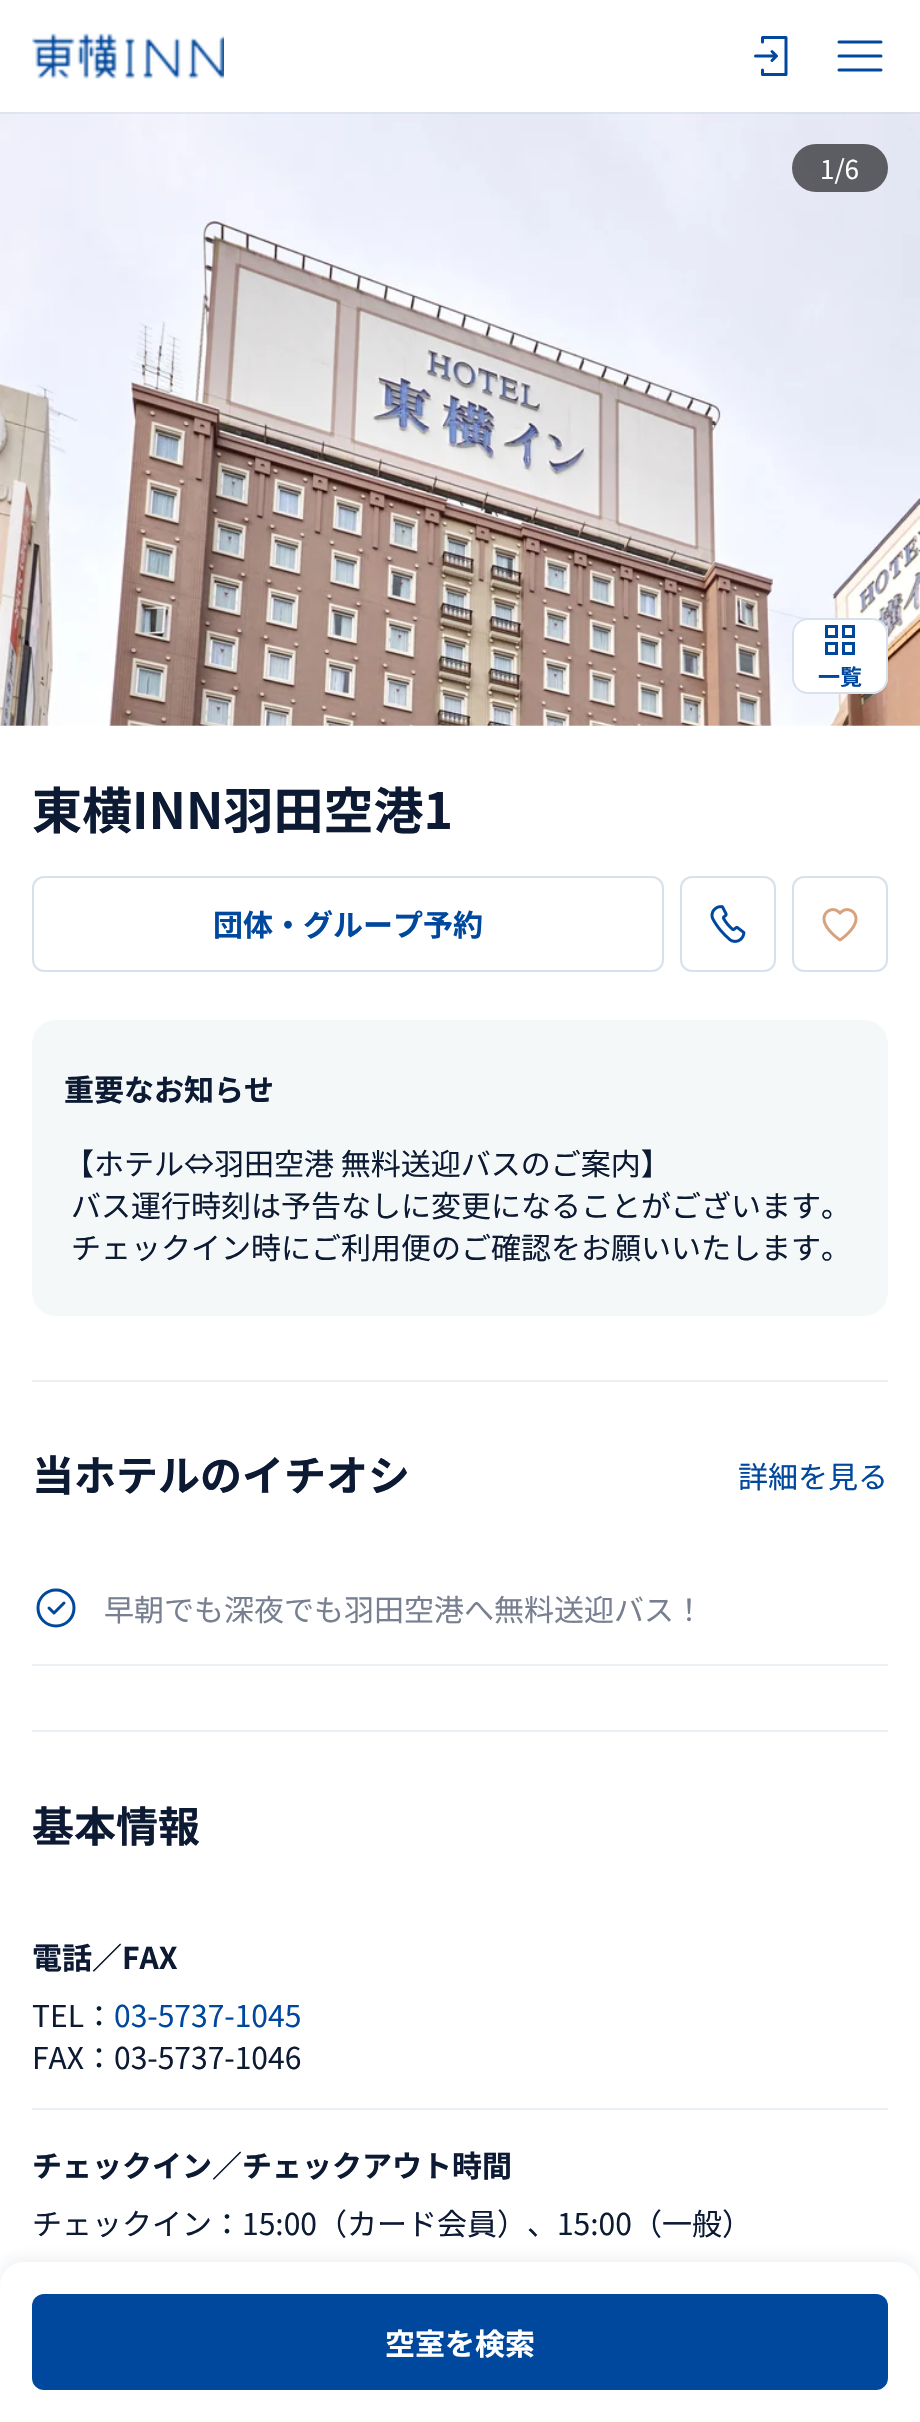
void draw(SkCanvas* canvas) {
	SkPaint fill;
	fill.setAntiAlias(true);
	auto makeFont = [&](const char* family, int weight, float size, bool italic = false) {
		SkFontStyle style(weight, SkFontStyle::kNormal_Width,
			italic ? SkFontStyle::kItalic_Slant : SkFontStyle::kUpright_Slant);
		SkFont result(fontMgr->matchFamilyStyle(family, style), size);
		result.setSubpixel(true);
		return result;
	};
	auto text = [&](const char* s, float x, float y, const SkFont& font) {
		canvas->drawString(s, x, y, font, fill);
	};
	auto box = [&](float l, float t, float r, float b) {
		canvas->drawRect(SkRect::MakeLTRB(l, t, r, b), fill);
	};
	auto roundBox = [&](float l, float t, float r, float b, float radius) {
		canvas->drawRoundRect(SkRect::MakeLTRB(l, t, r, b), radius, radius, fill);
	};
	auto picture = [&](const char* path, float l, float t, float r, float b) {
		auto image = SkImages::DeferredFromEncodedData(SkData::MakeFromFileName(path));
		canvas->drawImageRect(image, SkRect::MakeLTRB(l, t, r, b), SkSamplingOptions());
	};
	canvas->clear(0xFFFFFFFF);
	picture("image0.png", 32, 33, 224, 79);
	fill.setStyle(SkPaint::kStroke_Style);
	fill.setStrokeWidth(3);
	fill.setStrokeCap(SkPaint::kRound_Cap);
	fill.setStrokeJoin(SkPaint::kRound_Join);
	fill.setColor(0xFF00489D);
	canvas->drawPath(SkPathBuilder().moveTo(762.5f, 42).lineTo(762.5f, 37.5f).lineTo(786, 37.5f).lineTo(786, 74.5f).lineTo(762.5f, 74.5f).lineTo(762.5f, 70).moveTo(772, 51.5f).lineTo(776.5f, 56).moveTo(776.5f, 56).lineTo(772, 60.5f).moveTo(776.5f, 56).lineTo(755.5f, 56).detach(), fill);
	canvas->drawPath(SkPathBuilder().moveTo(839, 42).lineTo(881, 42).moveTo(839, 56).lineTo(881, 56).moveTo(839, 70).lineTo(881, 70).detach(), fill);
	picture("image1.png", 0, 112, 920, 726);
	fill.setStyle(SkPaint::kFill_Style);
	fill.setColor(0x4DBCCDDD);
	box(0, 112, 920, 114);
	fill.setColor(0x99000000);
	roundBox(792, 144, 888, 192, 24);
	fill.setColor(0xFFFFFFFF);
	roundBox(792, 618, 888, 694, 16);
	fill.setStyle(SkPaint::kStroke_Style);
	fill.setStrokeWidth(2);
	fill.setStrokeCap(SkPaint::kButt_Cap);
	fill.setStrokeJoin(SkPaint::kMiter_Join);
	fill.setColor(0x99BCCDDD);
	canvas->drawRoundRect(SkRect::MakeLTRB(793, 619, 887, 693), 15, 15, fill);
	fill.setStrokeWidth(3);
	fill.setColor(0xFF00489D);
	canvas->drawRect(SkRect::MakeLTRB(826.5f, 626.5f, 836.5f, 636.5f), fill);
	canvas->drawRect(SkRect::MakeLTRB(843.5f, 643.5f, 853.5f, 653.5f), fill);
	canvas->drawRect(SkRect::MakeLTRB(826.5f, 643.5f, 836.5f, 653.5f), fill);
	canvas->drawRect(SkRect::MakeLTRB(843.5f, 626.5f, 853.5f, 636.5f), fill);
	fill.setStrokeWidth(2);
	fill.setColor(0xFFD7E1EB);
	canvas->drawRoundRect(SkRect::MakeLTRB(33, 877, 663, 971), 11, 11, fill);
	canvas->drawRoundRect(SkRect::MakeLTRB(681, 877, 775, 971), 11, 11, fill);
	picture("image2.png", 710, 905, 746, 943);
	canvas->drawRoundRect(SkRect::MakeLTRB(793, 877, 887, 971), 11, 11, fill);
	picture("image3.png", 822, 908, 858, 942);
	fill.setStyle(SkPaint::kFill_Style);
	fill.setColor(0xFFF4F8F9);
	roundBox(32, 1020, 888, 1316, 24);
	fill.setColor(0xFFEBF0F5);
	box(32, 1380, 888, 1382);
	box(32, 1664, 888, 1666);
	fill.setStyle(SkPaint::kStroke_Style);
	fill.setStrokeWidth(3);
	fill.setColor(0xFF00489D);
	canvas->drawPath(SkPathBuilder().moveTo(56, 1626).cubicTo(66, 1626, 74, 1618, 74, 1608).cubicTo(74, 1598, 66, 1590, 56, 1590).cubicTo(46, 1590, 38, 1598, 38, 1608).cubicTo(38, 1618, 46, 1626, 56, 1626).close().detach(), fill);
	fill.setStrokeCap(SkPaint::kRound_Cap);
	fill.setStrokeJoin(SkPaint::kRound_Join);
	canvas->drawPath(SkPathBuilder().moveTo(64, 1603).lineTo(54, 1613).lineTo(49, 1608).detach(), fill);
	fill.setStyle(SkPaint::kFill_Style);
	fill.setColor(0xFFEBF0F5);
	box(32, 1730, 888, 1732);
	box(32, 2108, 888, 2110);
	fill.setColor(0x14193366);
	fill.setMaskFilter(SkMaskFilter::MakeBlur(kNormal_SkBlurStyle, 8));
	canvas->drawRoundRect(SkRect::MakeLTRB(0, 2258, 920, 2418), 24, 24, fill);
	fill.setMaskFilter(nullptr);
	fill.setColor(0xFFFFFFFF);
	canvas->drawPath(SkPathBuilder().moveTo(24, 2262).lineTo(896, 2262).cubicTo(909.5f, 2262, 920, 2272.5f, 920, 2286).lineTo(920, 2422).lineTo(0, 2422).lineTo(0, 2286).cubicTo(0, 2272.5f, 10.5f, 2262, 24, 2262).close().detach(), fill);
	fill.setColor(0xFF00489D);
	roundBox(32, 2294, 888, 2390, 12);
	auto font1 = makeFont("Noto Sans JP", 400, 26);
	fill.setColor(0xFFFFFFFF);
	text("1/6", 820, 179, font1);
	auto font2 = makeFont("Noto Sans JP", 700, 22);
	fill.setColor(0xFF00489D);
	text("一覧", 818, 685, font2);
	auto font3 = makeFont("Noto Sans JP", 700, 50);
	fill.setColor(0xFF0D1A33);
	text("東横INN羽田空港1", 32, 829, font3);
	auto font4 = makeFont("Noto Sans JP", 700, 30);
	fill.setColor(0xFF00489D);
	text("団体・グループ予約", 213, 936, font4);
	fill.setColor(0xFF0D1A33);
	text("重要なお知らせ", 64, 1101, font4);
	auto font5 = makeFont("Noto Sans JP", 400, 30);
	text("【ホテル⇔羽田空港 無料送迎バスのご案内】", 64, 1175, font5);
	text("バス運行時刻は予告なしに変更になることがございます。", 71, 1217, font5);
	text("チェックイン時にご利用便のご確認をお願いいたします。", 71, 1259, font5);
	auto font6 = makeFont("Noto Sans JP", 700, 42);
	text("当ホテルのイチオシ", 32, 1491, font6);
	fill.setColor(0xFF00489D);
	text("詳細を見る", 738, 1488, font5);
	fill.setColor(0xFF787F91);
	text("早朝でも深夜でも羽田空港へ無料送迎バス！", 104, 1621, font5);
	fill.setColor(0xFF0D1A33);
	text("基本情報", 32, 1842, font6);
	text("電話／FAX", 32, 1969, font4);
	text("TEL：", 32, 2027, font5);
	fill.setColor(0xFF00489D);
	text("03-5737-1045", 114, 2027, font5);
	fill.setColor(0xFF0D1A33);
	text("FAX：03-5737-1046", 32, 2069, font5);
	text("チェックイン／チェックアウト時間", 32, 2177, font4);
	text("チェックイン：15:00（カード会員）、15:00（一般）", 32, 2235, font5);
	fill.setColor(0xFFFFFFFF);
	text("空室を検索", 385, 2355, font4);
}
